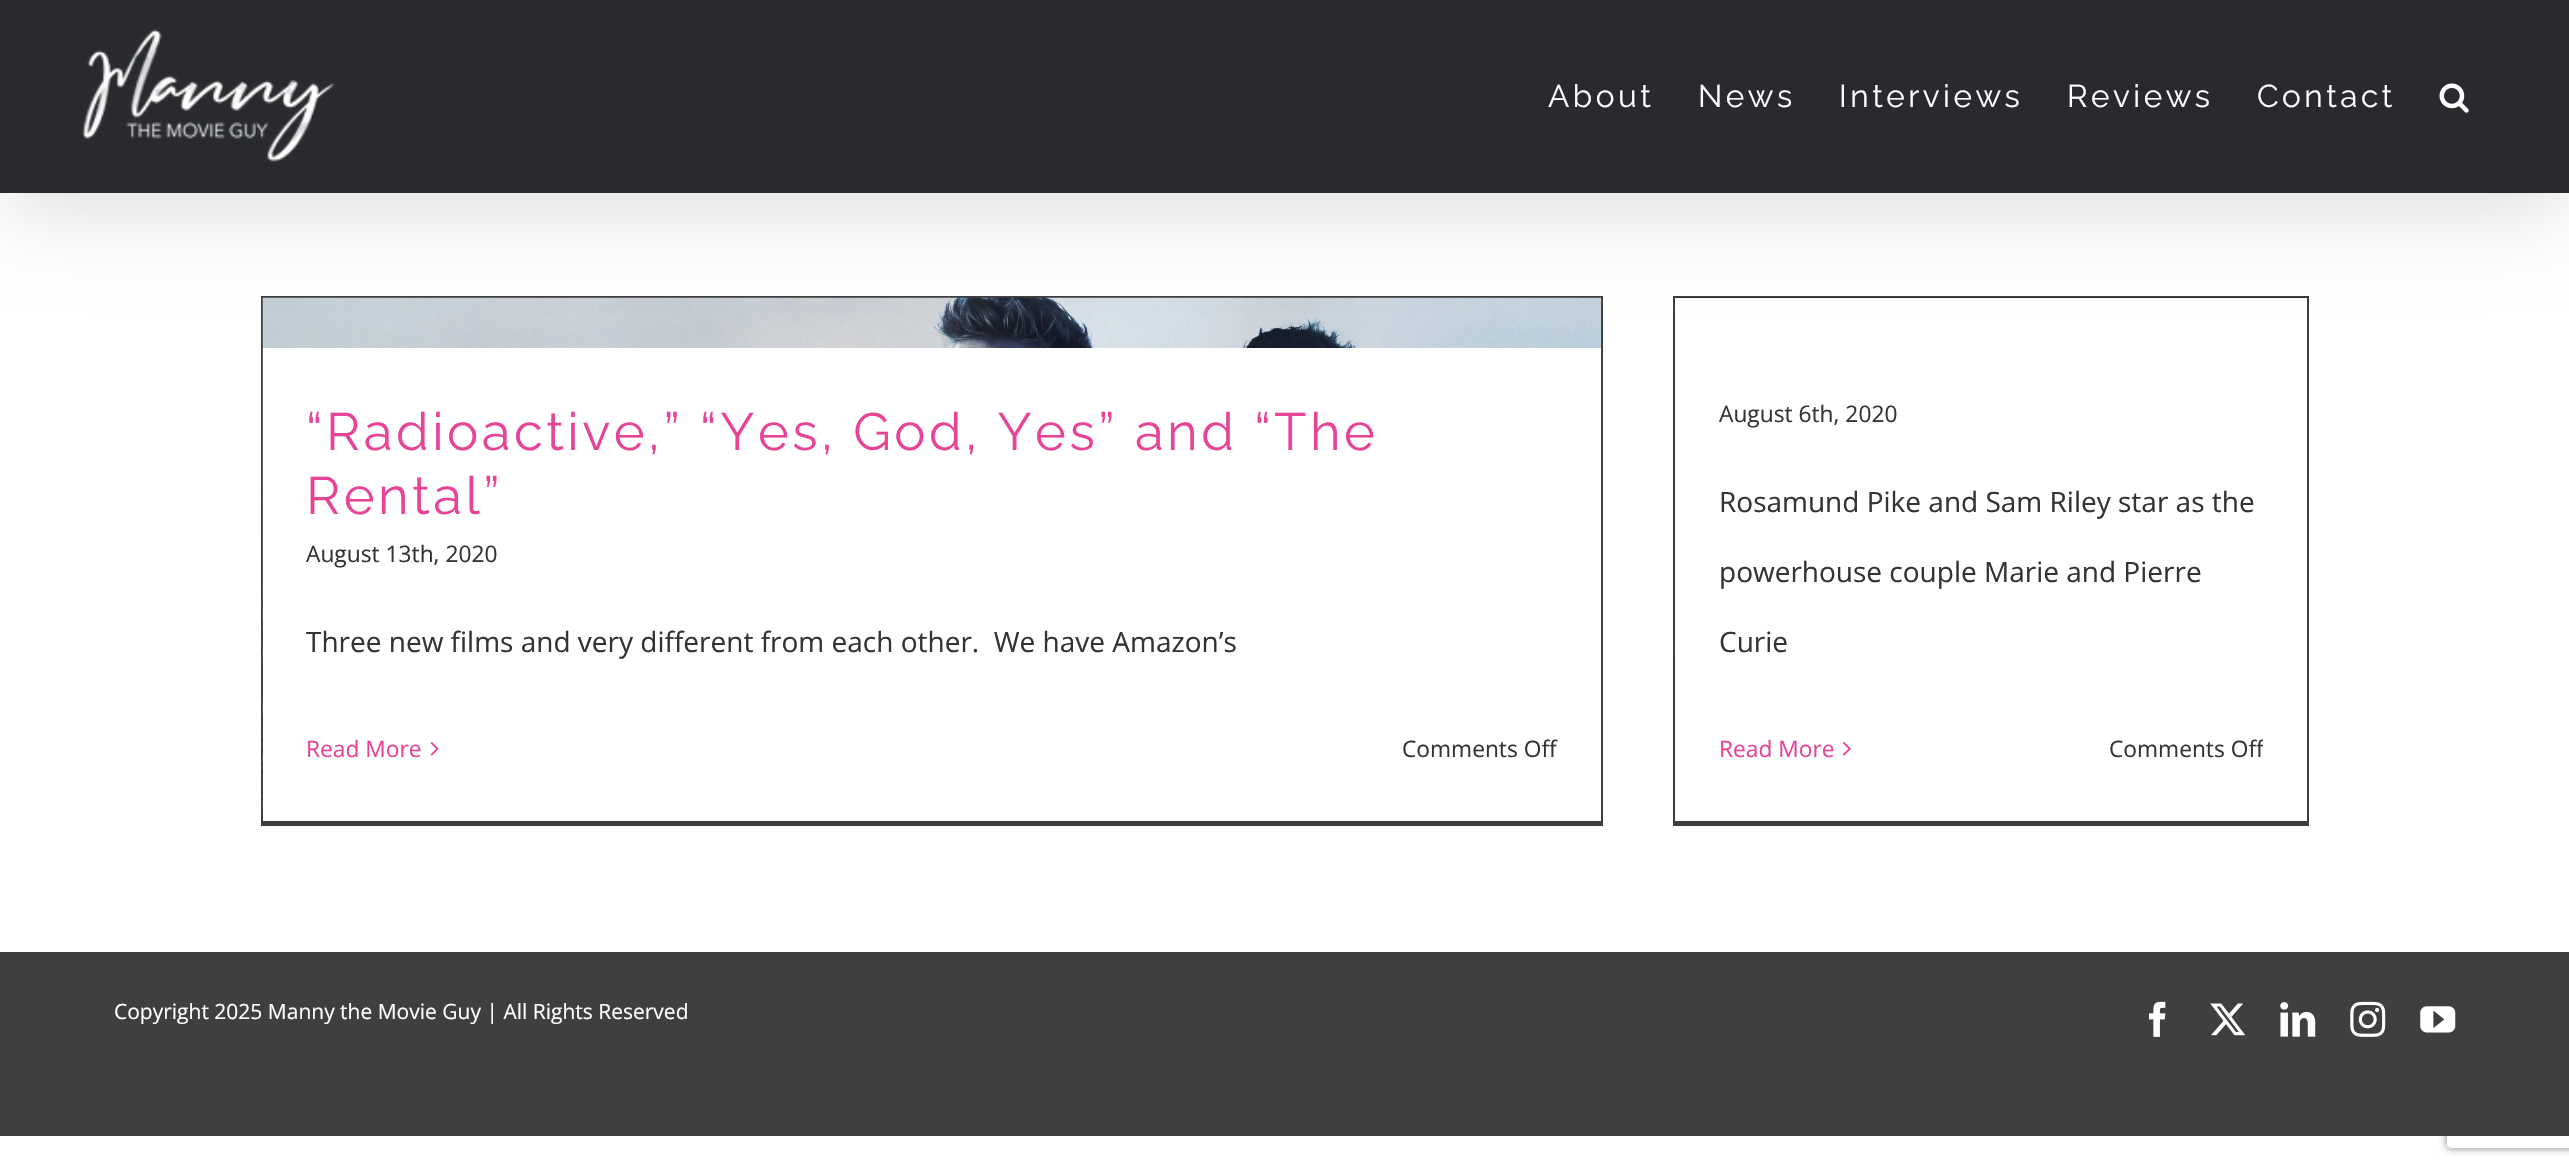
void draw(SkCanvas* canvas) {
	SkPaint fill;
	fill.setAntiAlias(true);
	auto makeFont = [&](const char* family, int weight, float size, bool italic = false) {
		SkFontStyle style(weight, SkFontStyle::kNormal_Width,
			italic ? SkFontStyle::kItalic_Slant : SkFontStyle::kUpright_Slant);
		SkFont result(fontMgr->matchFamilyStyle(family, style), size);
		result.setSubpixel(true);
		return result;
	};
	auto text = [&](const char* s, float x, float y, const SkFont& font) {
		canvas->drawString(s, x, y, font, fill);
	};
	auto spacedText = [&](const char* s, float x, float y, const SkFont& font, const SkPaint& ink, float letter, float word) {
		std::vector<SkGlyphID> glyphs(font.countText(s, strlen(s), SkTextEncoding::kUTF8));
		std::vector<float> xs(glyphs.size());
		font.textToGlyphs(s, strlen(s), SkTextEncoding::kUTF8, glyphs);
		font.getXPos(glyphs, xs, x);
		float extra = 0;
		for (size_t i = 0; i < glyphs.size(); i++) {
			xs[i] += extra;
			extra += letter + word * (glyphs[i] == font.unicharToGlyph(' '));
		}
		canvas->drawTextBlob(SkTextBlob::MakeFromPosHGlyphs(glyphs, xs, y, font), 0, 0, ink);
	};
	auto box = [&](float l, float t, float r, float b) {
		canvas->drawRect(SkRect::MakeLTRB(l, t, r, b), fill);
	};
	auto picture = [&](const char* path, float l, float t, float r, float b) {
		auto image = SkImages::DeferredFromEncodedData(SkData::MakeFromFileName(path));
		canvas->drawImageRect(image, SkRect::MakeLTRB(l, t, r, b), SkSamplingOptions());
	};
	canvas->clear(0xFFFFFFFF);
	fill.setColor(0xFF3E3E3E);
	box(261, 296, 1603, 298);
	box(1601, 296, 1603, 826);
	box(261, 821, 1603, 826);
	box(261, 296, 263, 826);
	picture("image2.png", 262, 297, 1602, 821);
	box(1673, 296, 2308, 298);
	box(2307, 296, 2309, 826);
	box(1673, 821, 2308, 826);
	box(1673, 296, 1675, 826);
	picture("image4.png", 1674, 297, 2307, 821);
	fill.setColor(0xFFFFFFFF);
	box(1675, 298, 2307, 821);
	fill.setColor(0x24000000);
	fill.setMaskFilter(SkMaskFilter::MakeBlur(kNormal_SkBlurStyle, 44));
	canvas->drawRect(SkRect::MakeLTRB(4, 21, 2566, 207), fill);
	fill.setMaskFilter(nullptr);
	fill.setColor(0xFF282A2D);
	box(0, 0, 2569, 193);
	picture("image0.png", 82, 29, 335, 162);
	picture("image1.png", 2439, 83, 2469, 113);
	fill.setColor(0xFFFFFFFF);
	box(263, 348, 1601, 821);
	picture("image3.png", 430, 742, 439, 756);
	picture("image5.png", 1843, 742, 1851, 756);
	canvas->save();
	canvas->clipPath(SkPathBuilder(SkPathFillType::kEvenOdd).moveTo(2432, 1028).lineTo(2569, 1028).lineTo(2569, 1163).lineTo(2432, 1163).close().moveTo(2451, 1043).lineTo(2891, 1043).cubicTo(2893, 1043, 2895, 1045, 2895, 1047).lineTo(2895, 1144).cubicTo(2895, 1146, 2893, 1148, 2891, 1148).lineTo(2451, 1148).cubicTo(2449, 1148, 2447, 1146, 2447, 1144).lineTo(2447, 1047).cubicTo(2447, 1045, 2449, 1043, 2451, 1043).close().detach(), true);
	fill.setColor(0xFF808080);
	fill.setMaskFilter(SkMaskFilter::MakeBlur(kNormal_SkBlurStyle, 4.5f));
	canvas->drawRoundRect(SkRect::MakeLTRB(2447, 1043, 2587, 1148), 4, 4, fill);
	fill.setMaskFilter(nullptr);
	canvas->restore();
	fill.setColor(0xFF403F3F);
	box(0, 952, 2569, 1136);
	picture("image6.png", 2149, 1001, 2166, 1037);
	picture("image7.png", 2210, 1003, 2246, 1036);
	picture("image8.png", 2280, 1002, 2316, 1037);
	picture("image9.png", 2350, 1001, 2386, 1037);
	picture("image10.png", 2420, 1006, 2456, 1033);
	auto font1 = makeFont("Raleway", 400, 31.5f);
	fill.setColor(0xFFFFFFFF);
	spacedText("About", 1548, 107, font1, fill, 3.5f, 0);
	spacedText("News", 1698, 107, font1, fill, 3.5f, 0);
	spacedText("Interviews", 1839, 107, font1, fill, 3.5f, 0);
	spacedText("Reviews", 2067, 107, font1, fill, 3.5f, 0);
	spacedText("Contact", 2257, 107, font1, fill, 3.5f, 0);
	auto font2 = makeFont("Raleway", 400, 52.5f);
	fill.setColor(0xFFE74498);
	spacedText("“Radioactive,” “Yes, God, Yes” and “The", 306, 450, font2, fill, 3.5f, 0);
	spacedText("Rental”", 306, 514, font2, fill, 3.5f, 0);
	auto font3 = makeFont("Open Sans", 400, 22.75f);
	fill.setColor(0xFF333333);
	text("August 13th, 2020", 306, 562, font3);
	auto font4 = makeFont("Open Sans", 400, 28);
	text("Three new films and very different from each other.  We have Amazon’s", 306, 652, font4);
	fill.setColor(0xFFE74498);
	text("Read More", 306, 757, font3);
	fill.setColor(0xFF333333);
	text("Comments Off", 1402, 757, font3);
	text("August 6th, 2020", 1719, 422, font3);
	text("Rosamund Pike and Sam Riley star as the", 1719, 512, font4);
	text("powerhouse couple Marie and Pierre", 1719, 582, font4);
	text("Curie", 1719, 652, font4);
	fill.setColor(0xFFE74498);
	text("Read More", 1719, 757, font3);
	canvas->save();
	canvas->clipRect(SkRect::MakeLTRB(1719, 712, 2263, 786));
	fill.setColor(0xFF333333);
	text("Comments Off", 2109, 757, font3);
	canvas->restore();
	auto font5 = makeFont("Open Sans", 400, 21);
	fill.setColor(0xFFFFFFFF);
	text("Copyright 2025 Manny the Movie Guy | All Rights Reserved", 114, 1019, font5);
}
